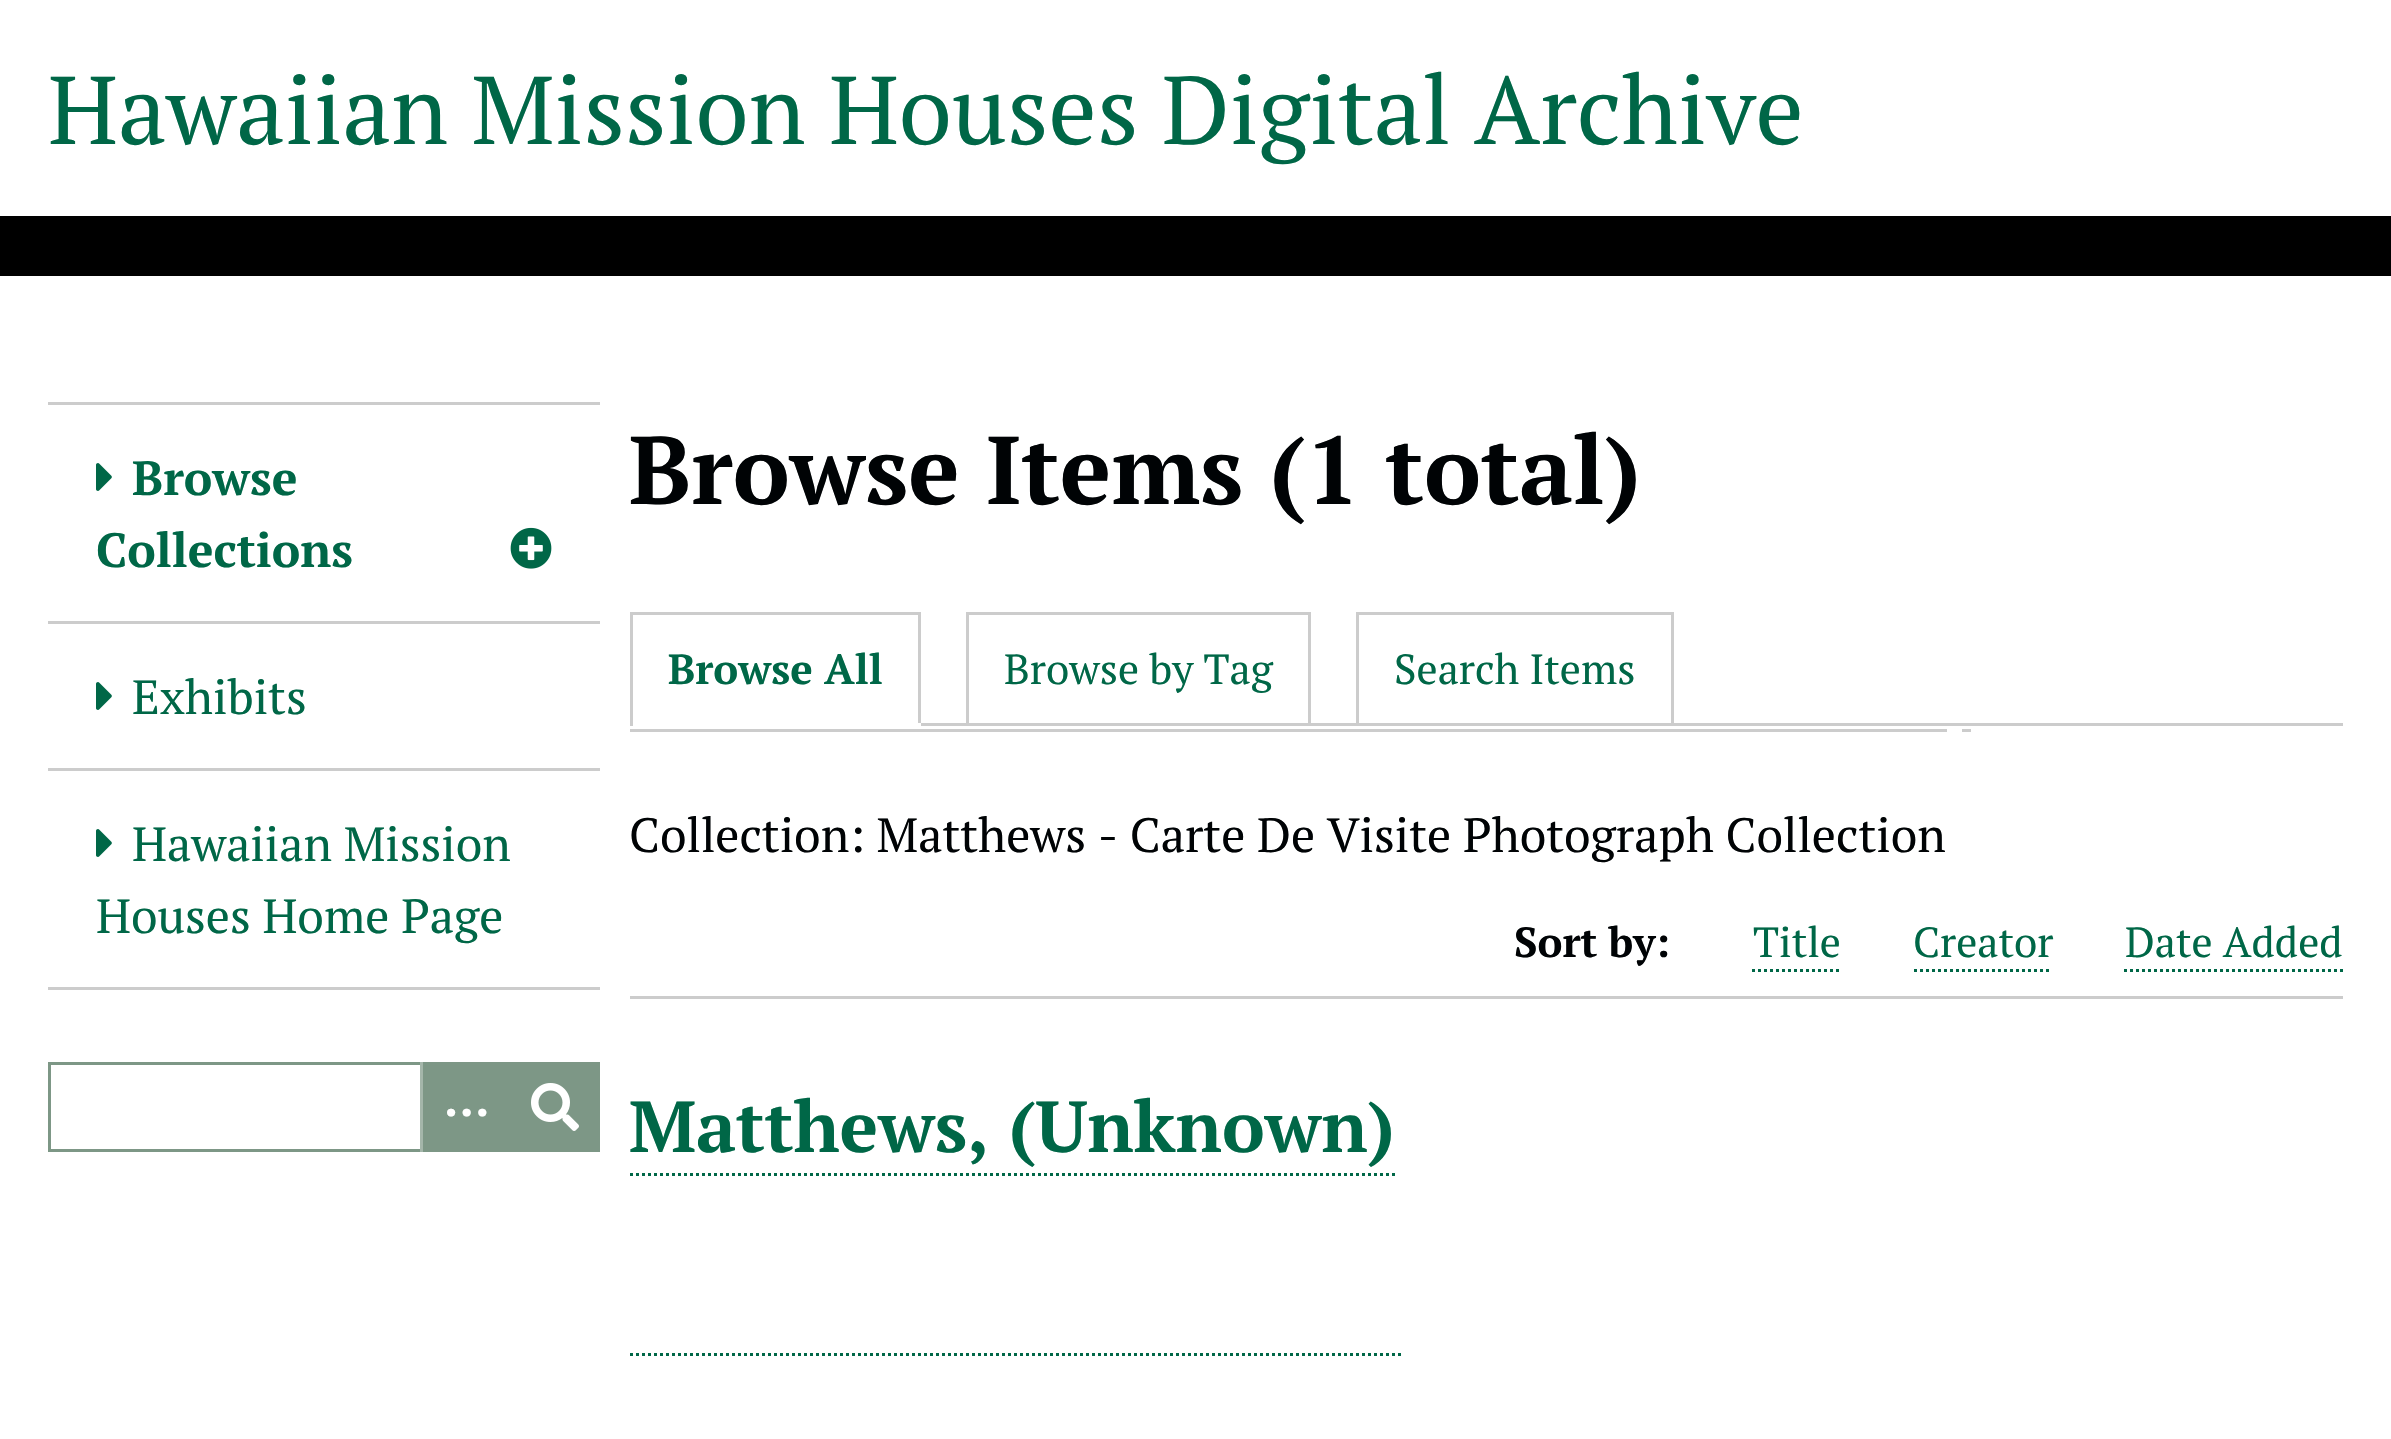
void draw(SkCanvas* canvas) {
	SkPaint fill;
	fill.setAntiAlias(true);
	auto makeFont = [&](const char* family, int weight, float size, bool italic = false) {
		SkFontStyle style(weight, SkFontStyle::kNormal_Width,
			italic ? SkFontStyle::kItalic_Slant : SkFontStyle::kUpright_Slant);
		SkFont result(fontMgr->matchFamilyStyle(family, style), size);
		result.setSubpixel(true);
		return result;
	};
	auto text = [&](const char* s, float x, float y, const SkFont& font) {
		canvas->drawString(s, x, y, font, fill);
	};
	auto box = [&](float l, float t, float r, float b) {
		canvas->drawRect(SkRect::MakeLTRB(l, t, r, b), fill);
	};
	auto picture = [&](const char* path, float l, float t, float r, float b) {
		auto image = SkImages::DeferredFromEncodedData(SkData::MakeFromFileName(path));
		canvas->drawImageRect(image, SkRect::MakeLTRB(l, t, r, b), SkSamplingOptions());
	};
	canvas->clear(0xFFFFFFFF);
	fill.setColor(0xFF000000);
	box(0, 216, 2391, 276);
	fill.setColor(0xFFCCCCCC);
	box(48, 402, 600, 405);
	box(48, 621, 600, 624);
	picture("image0.png", 96, 463, 112, 491);
	picture("image1.png", 510, 527, 552, 569);
	box(48, 768, 600, 771);
	picture("image0.png", 96, 682, 112, 710);
	box(48, 987, 600, 990);
	picture("image0.png", 96, 829, 112, 857);
	fill.setStyle(SkPaint::kStroke_Style);
	fill.setStrokeWidth(3);
	fill.setColor(0xFF7D9786);
	canvas->drawRect(SkRect::MakeLTRB(49.5f, 1063.5f, 598.5f, 1150.5f), fill);
	fill.setStyle(SkPaint::kFill_Style);
	box(423, 1065, 597, 1149);
	fill.setColor(0xFFA4B6AA);
	box(420, 1062, 423, 1152);
	picture("image2.png", 531, 1083, 579, 1131);
	fill.setColor(0xFFCCCCCC);
	box(921, 723, 2343, 726);
	box(630, 612, 921, 615);
	box(918, 612, 921, 726);
	fill.setColor(0xFFFFFFFF);
	box(918, 723, 921, 726);
	fill.setColor(0xFFCCCCCC);
	box(630, 612, 633, 726);
	fill.setStyle(SkPaint::kStroke_Style);
	canvas->drawRect(SkRect::MakeLTRB(967.5f, 613.5f, 1309.5f, 724.5f), fill);
	fill.setStyle(SkPaint::kFill_Style);
	box(1356, 612, 1674, 615);
	box(1671, 612, 1674, 723);
	box(1356, 612, 1359, 723);
	box(630, 729, 1947, 732);
	box(1962, 729, 1971, 732);
	fill.setStyle(SkPaint::kStroke_Style);
	fill.setColor(0xFF006747);
	fill.setPathEffect(SkDashPathEffect::Make({{3, 3}}, 0));
	canvas->drawPath(SkPathBuilder().moveTo(1752, 970.5f).lineTo(1842, 970.5f).detach(), fill);
	fill.setPathEffect(nullptr);
	fill.setPathEffect(SkDashPathEffect::Make({{3, 3}}, 0));
	canvas->drawPath(SkPathBuilder().moveTo(1914, 970.5f).lineTo(2052, 970.5f).detach(), fill);
	fill.setPathEffect(nullptr);
	fill.setPathEffect(SkDashPathEffect::Make({{3, 3}}, 0));
	canvas->drawPath(SkPathBuilder().moveTo(2124, 970.5f).lineTo(2343, 970.5f).detach(), fill);
	fill.setPathEffect(nullptr);
	fill.setStyle(SkPaint::kFill_Style);
	fill.setColor(0xFFCCCCCC);
	box(630, 996, 2343, 999);
	fill.setStyle(SkPaint::kStroke_Style);
	fill.setColor(0xFF006747);
	fill.setPathEffect(SkDashPathEffect::Make({{3, 3}}, 0));
	canvas->drawPath(SkPathBuilder().moveTo(630, 1174.5f).lineTo(1395, 1174.5f).detach(), fill);
	fill.setPathEffect(nullptr);
	fill.setPathEffect(SkDashPathEffect::Make({{3, 3}}, 0));
	canvas->drawPath(SkPathBuilder().moveTo(630, 1354.5f).lineTo(1401, 1354.5f).detach(), fill);
	fill.setPathEffect(nullptr);
	auto font1 = makeFont("PT Serif", 400, 96);
	fill.setStyle(SkPaint::kFill_Style);
	text("Hawaiian Mission Houses Digital Archive", 48, 144, font1);
	auto font2 = makeFont("PT Serif", 700, 48);
	text("Browse", 132, 495, font2);
	text("Collections", 96, 567, font2);
	auto font3 = makeFont("PT Serif", 400, 48);
	text("Exhibits", 132, 714, font3);
	text("Hawaiian Mission", 132, 861, font3);
	text("Houses Home Page", 96, 933, font3);
	fill.setColor(0xFFFFFFFF);
	text("…", 444, 1116, font2);
	auto font4 = makeFont("PT Serif", 700, 96);
	fill.setColor(0xFF000305);
	text("Browse Items (1 total)", 629, 504, font4);
	auto font5 = makeFont("PT Serif", 700, 42);
	fill.setColor(0xFF006747);
	text("Browse All", 668, 684, font5);
	auto font6 = makeFont("PT Serif", 400, 42);
	text("Browse by Tag", 1004, 684, font6);
	text("Search Items", 1394, 684, font6);
	fill.setColor(0xFF000305);
	text("Collection: Matthews - Carte De Visite Photograph Collection", 629, 852, font3);
	text("Sort by:", 1514, 957, font5);
	fill.setColor(0xFF006747);
	text("Title", 1753, 957, font6);
	text("Creator", 1913, 957, font6);
	text("Date Added", 2125, 957, font6);
	auto font7 = makeFont("PT Serif", 700, 72);
	text("Matthews, (Unknown)", 629, 1152, font7);
}
